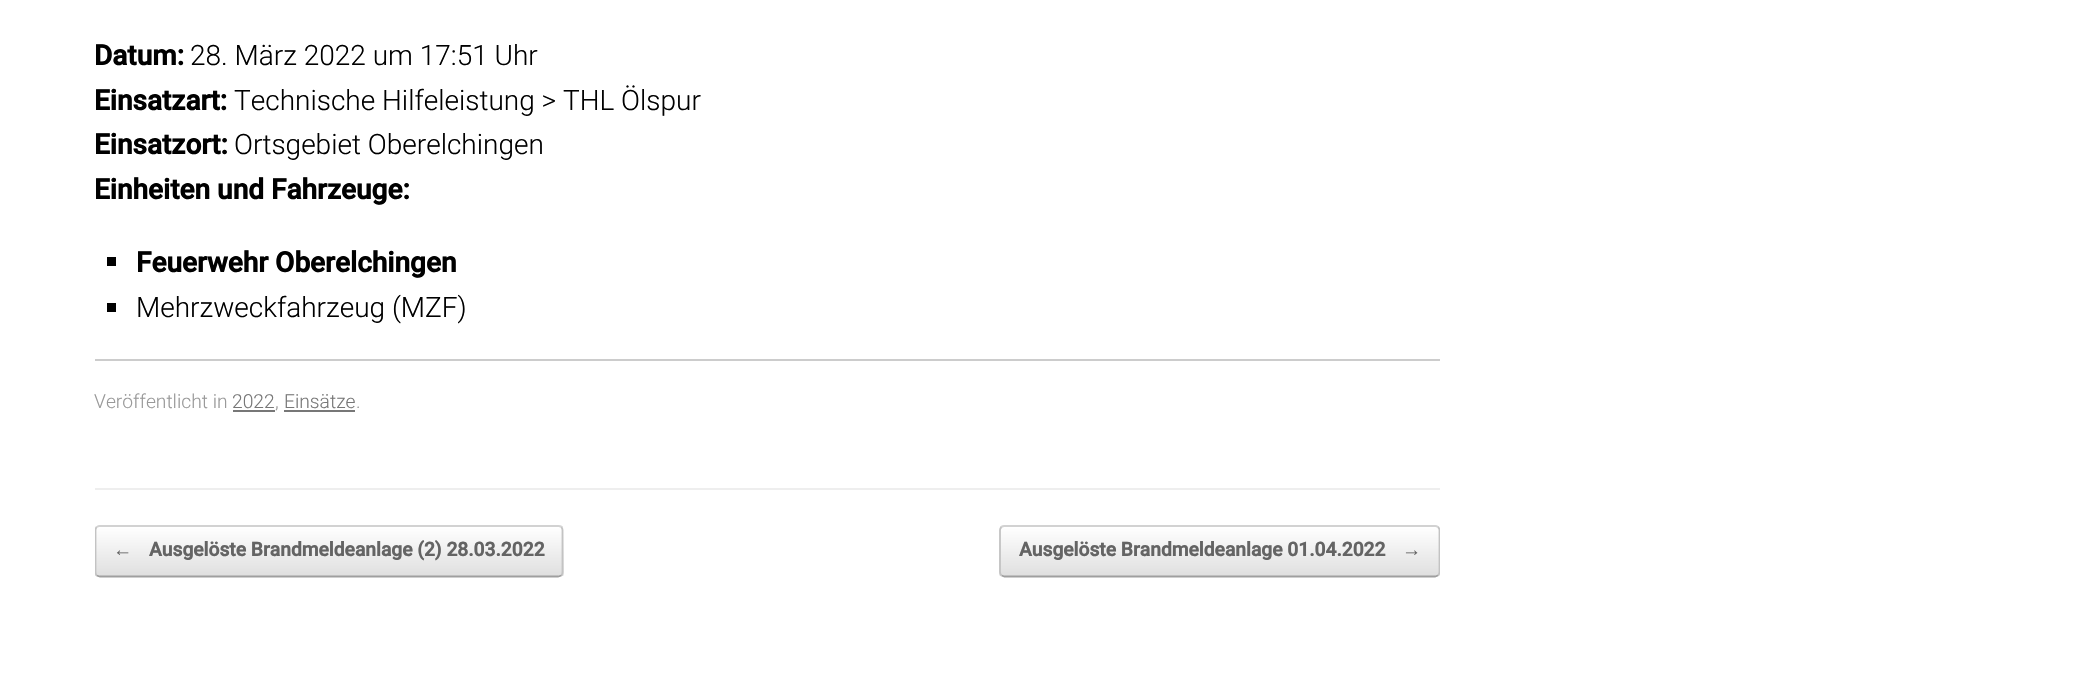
void draw(SkCanvas* canvas) {
	SkPaint fill;
	fill.setAntiAlias(true);
	auto makeFont = [&](const char* family, int weight, float size, bool italic = false) {
		SkFontStyle style(weight, SkFontStyle::kNormal_Width,
			italic ? SkFontStyle::kItalic_Slant : SkFontStyle::kUpright_Slant);
		SkFont result(fontMgr->matchFamilyStyle(family, style), size);
		result.setSubpixel(true);
		return result;
	};
	auto text = [&](const char* s, float x, float y, const SkFont& font) {
		canvas->drawString(s, x, y, font, fill);
	};
	auto box = [&](float l, float t, float r, float b) {
		canvas->drawRect(SkRect::MakeLTRB(l, t, r, b), fill);
	};
	canvas->clear(0xFFFFFFFF);
	fill.setColor(0xFFEEEEEE);
	box(95, 488, 1440, 490);
	fill.setColor(0xFF000000);
	box(107, 257, 116, 266);
	box(107, 303, 116, 312);
	fill.setColor(0xFFCCCCCC);
	box(95, 359, 1440, 361);
	fill.setColor(0xFF777777);
	box(233, 410, 275, 412);
	box(284, 410, 355, 412);
	canvas->save();
	canvas->clipPath(SkPathBuilder().moveTo(100, 525).lineTo(559, 525).cubicTo(562, 525, 564, 527, 564, 530).lineTo(564, 573).cubicTo(564, 576, 562, 578, 559, 578).lineTo(100, 578).cubicTo(97, 578, 95, 576, 95, 573).lineTo(95, 530).cubicTo(95, 527, 97, 525, 100, 525).close().detach(), true);
	{
		const SkColor colors[] = {0xFFDFDFDF, 0xFFFFFFFF};
		const float stops[] = {0, 1};
		const SkPoint ends[] = {{96, 527}, {96, 478}};
		fill.setShader(SkGradientShader::MakeLinear(ends, colors, stops, 2, SkTileMode::kClamp));
		fill.setAlpha(255);
	}
	box(95, 525, 564, 527);
	{
		const SkColor colors[] = {0xFFDFDFDF, 0xFFFFFFFF};
		const float stops[] = {0, 1};
		const SkPoint ends[] = {{96, 576}, {96, 527}};
		fill.setShader(SkGradientShader::MakeLinear(ends, colors, stops, 2, SkTileMode::kClamp));
		fill.setAlpha(255);
	}
	box(95, 527, 564, 576);
	canvas->restore();
	fill.setStyle(SkPaint::kStroke_Style);
	fill.setStrokeWidth(1.8f);
	fill.setShader(nullptr);
	fill.setColor(0xFFD2D2D2);
	canvas->drawPath(SkPathBuilder().moveTo(96.5f, 527).lineTo(100, 526).lineTo(558, 526).lineTo(561.5f, 527).detach(), fill);
	fill.setColor(0xFFC3C3C3);
	canvas->drawPath(SkPathBuilder().moveTo(561.5f, 527).cubicTo(562, 528, 562.5f, 529, 562.5f, 530).lineTo(562.5f, 572).cubicTo(562.5f, 573.5f, 562, 574.5f, 561.5f, 575.5f).detach(), fill);
	fill.setColor(0xFF9F9F9F);
	canvas->drawPath(SkPathBuilder().moveTo(561.5f, 575.5f).lineTo(558, 576.5f).lineTo(100, 576.5f).lineTo(96.5f, 575.5f).detach(), fill);
	canvas->save();
	canvas->clipRect(SkRect::MakeLTRB(95, 525, 1440, 578));
	fill.setColor(0xFFC3C3C3);
	canvas->drawPath(SkPathBuilder().moveTo(96.5f, 575.5f).cubicTo(96, 574.5f, 95.5f, 573.5f, 95.5f, 572).lineTo(95.5f, 530).cubicTo(95.5f, 529, 96, 528, 96.5f, 527).detach(), fill);
	canvas->restore();
	canvas->save();
	canvas->clipPath(SkPathBuilder().moveTo(1004, 525).lineTo(1435, 525).cubicTo(1438, 525, 1440, 527, 1440, 530).lineTo(1440, 573).cubicTo(1440, 576, 1438, 578, 1435, 578).lineTo(1004, 578).cubicTo(1001, 578, 999, 576, 999, 573).lineTo(999, 530).cubicTo(999, 527, 1001, 525, 1004, 525).close().detach(), true);
	fill.setStyle(SkPaint::kFill_Style);
	{
		const SkColor colors[] = {0xFFDFDFDF, 0xFFFFFFFF};
		const float stops[] = {0, 1};
		const SkPoint ends[] = {{1001, 527}, {1001, 478}};
		fill.setShader(SkGradientShader::MakeLinear(ends, colors, stops, 2, SkTileMode::kClamp));
		fill.setAlpha(255);
	}
	box(999, 525, 1440, 527);
	{
		const SkColor colors[] = {0xFFDFDFDF, 0xFFFFFFFF};
		const float stops[] = {0, 1};
		const SkPoint ends[] = {{1001, 576}, {1001, 527}};
		fill.setShader(SkGradientShader::MakeLinear(ends, colors, stops, 2, SkTileMode::kClamp));
		fill.setAlpha(255);
	}
	box(999, 527, 1440, 576);
	canvas->restore();
	fill.setStyle(SkPaint::kStroke_Style);
	fill.setShader(nullptr);
	fill.setColor(0xFFD2D2D2);
	canvas->drawPath(SkPathBuilder().moveTo(1001.5f, 527).lineTo(1004.5f, 526).lineTo(1435, 526).lineTo(1438, 527).detach(), fill);
	canvas->save();
	canvas->clipRect(SkRect::MakeLTRB(95, 525, 1440, 578));
	fill.setColor(0xFFC3C3C3);
	canvas->drawPath(SkPathBuilder().moveTo(1438, 527).cubicTo(1439, 528, 1439.5f, 529, 1439.5f, 530).lineTo(1439.5f, 572).cubicTo(1439.5f, 573.5f, 1439, 574.5f, 1438, 575.5f).detach(), fill);
	canvas->restore();
	fill.setColor(0xFF9F9F9F);
	canvas->drawPath(SkPathBuilder().moveTo(1438, 575.5f).lineTo(1435, 576.5f).lineTo(1004.5f, 576.5f).lineTo(1001.5f, 575.5f).detach(), fill);
	fill.setColor(0xFFC3C3C3);
	canvas->drawPath(SkPathBuilder().moveTo(1001.5f, 575.5f).cubicTo(1000.5f, 574.5f, 1000, 573.5f, 1000, 572).lineTo(1000, 530).cubicTo(1000, 529, 1000.5f, 528, 1001.5f, 527).detach(), fill);
	auto font1 = makeFont("Roboto", 700, 28);
	fill.setStyle(SkPaint::kFill_Style);
	fill.setColor(0xFF000000);
	text("Datum:", 94, 65, font1);
	auto font2 = makeFont("Roboto", 300, 28);
	text("28. März 2022 um 17:51 Uhr", 190, 65, font2);
	text("Einsatzart:", 94, 110, font1);
	text("Technische Hilfeleistung > THL Ölspur", 234, 110, font2);
	text("Einsatzort:", 94, 154, font1);
	text("Ortsgebiet Oberelchingen", 234, 154, font2);
	text("Einheiten und Fahrzeuge:", 94, 199, font1);
	text("Feuerwehr Oberelchingen", 136, 272, font1);
	text("Mehrzweckfahrzeug (MZF)", 136, 317, font2);
	auto font3 = makeFont("Roboto", 300, 19.25f);
	fill.setColor(0xFF999999);
	text("Veröffentlicht in", 94, 408, font3);
	fill.setColor(0xFF777777);
	text("2022", 232, 408, font3);
	fill.setColor(0xFF999999);
	text(",", 275, 408, font3);
	fill.setColor(0xFF777777);
	text("Einsätze", 284, 408, font3);
	fill.setColor(0xFF999999);
	text(".", 356, 408, font3);
	auto font4 = makeFont("Liberation Serif", 700, 19.25f);
	fill.setColor(0xFF646464);
	text("←", 113, 556, font4);
	auto font5 = makeFont("Roboto", 700, 19.25f);
	text("Ausgelöste Brandmeldeanlage (2) 28.03.2022", 149, 556, font5);
	text("Ausgelöste Brandmeldeanlage 01.04.2022", 1019, 556, font5);
	text("→", 1402, 556, font4);
}
